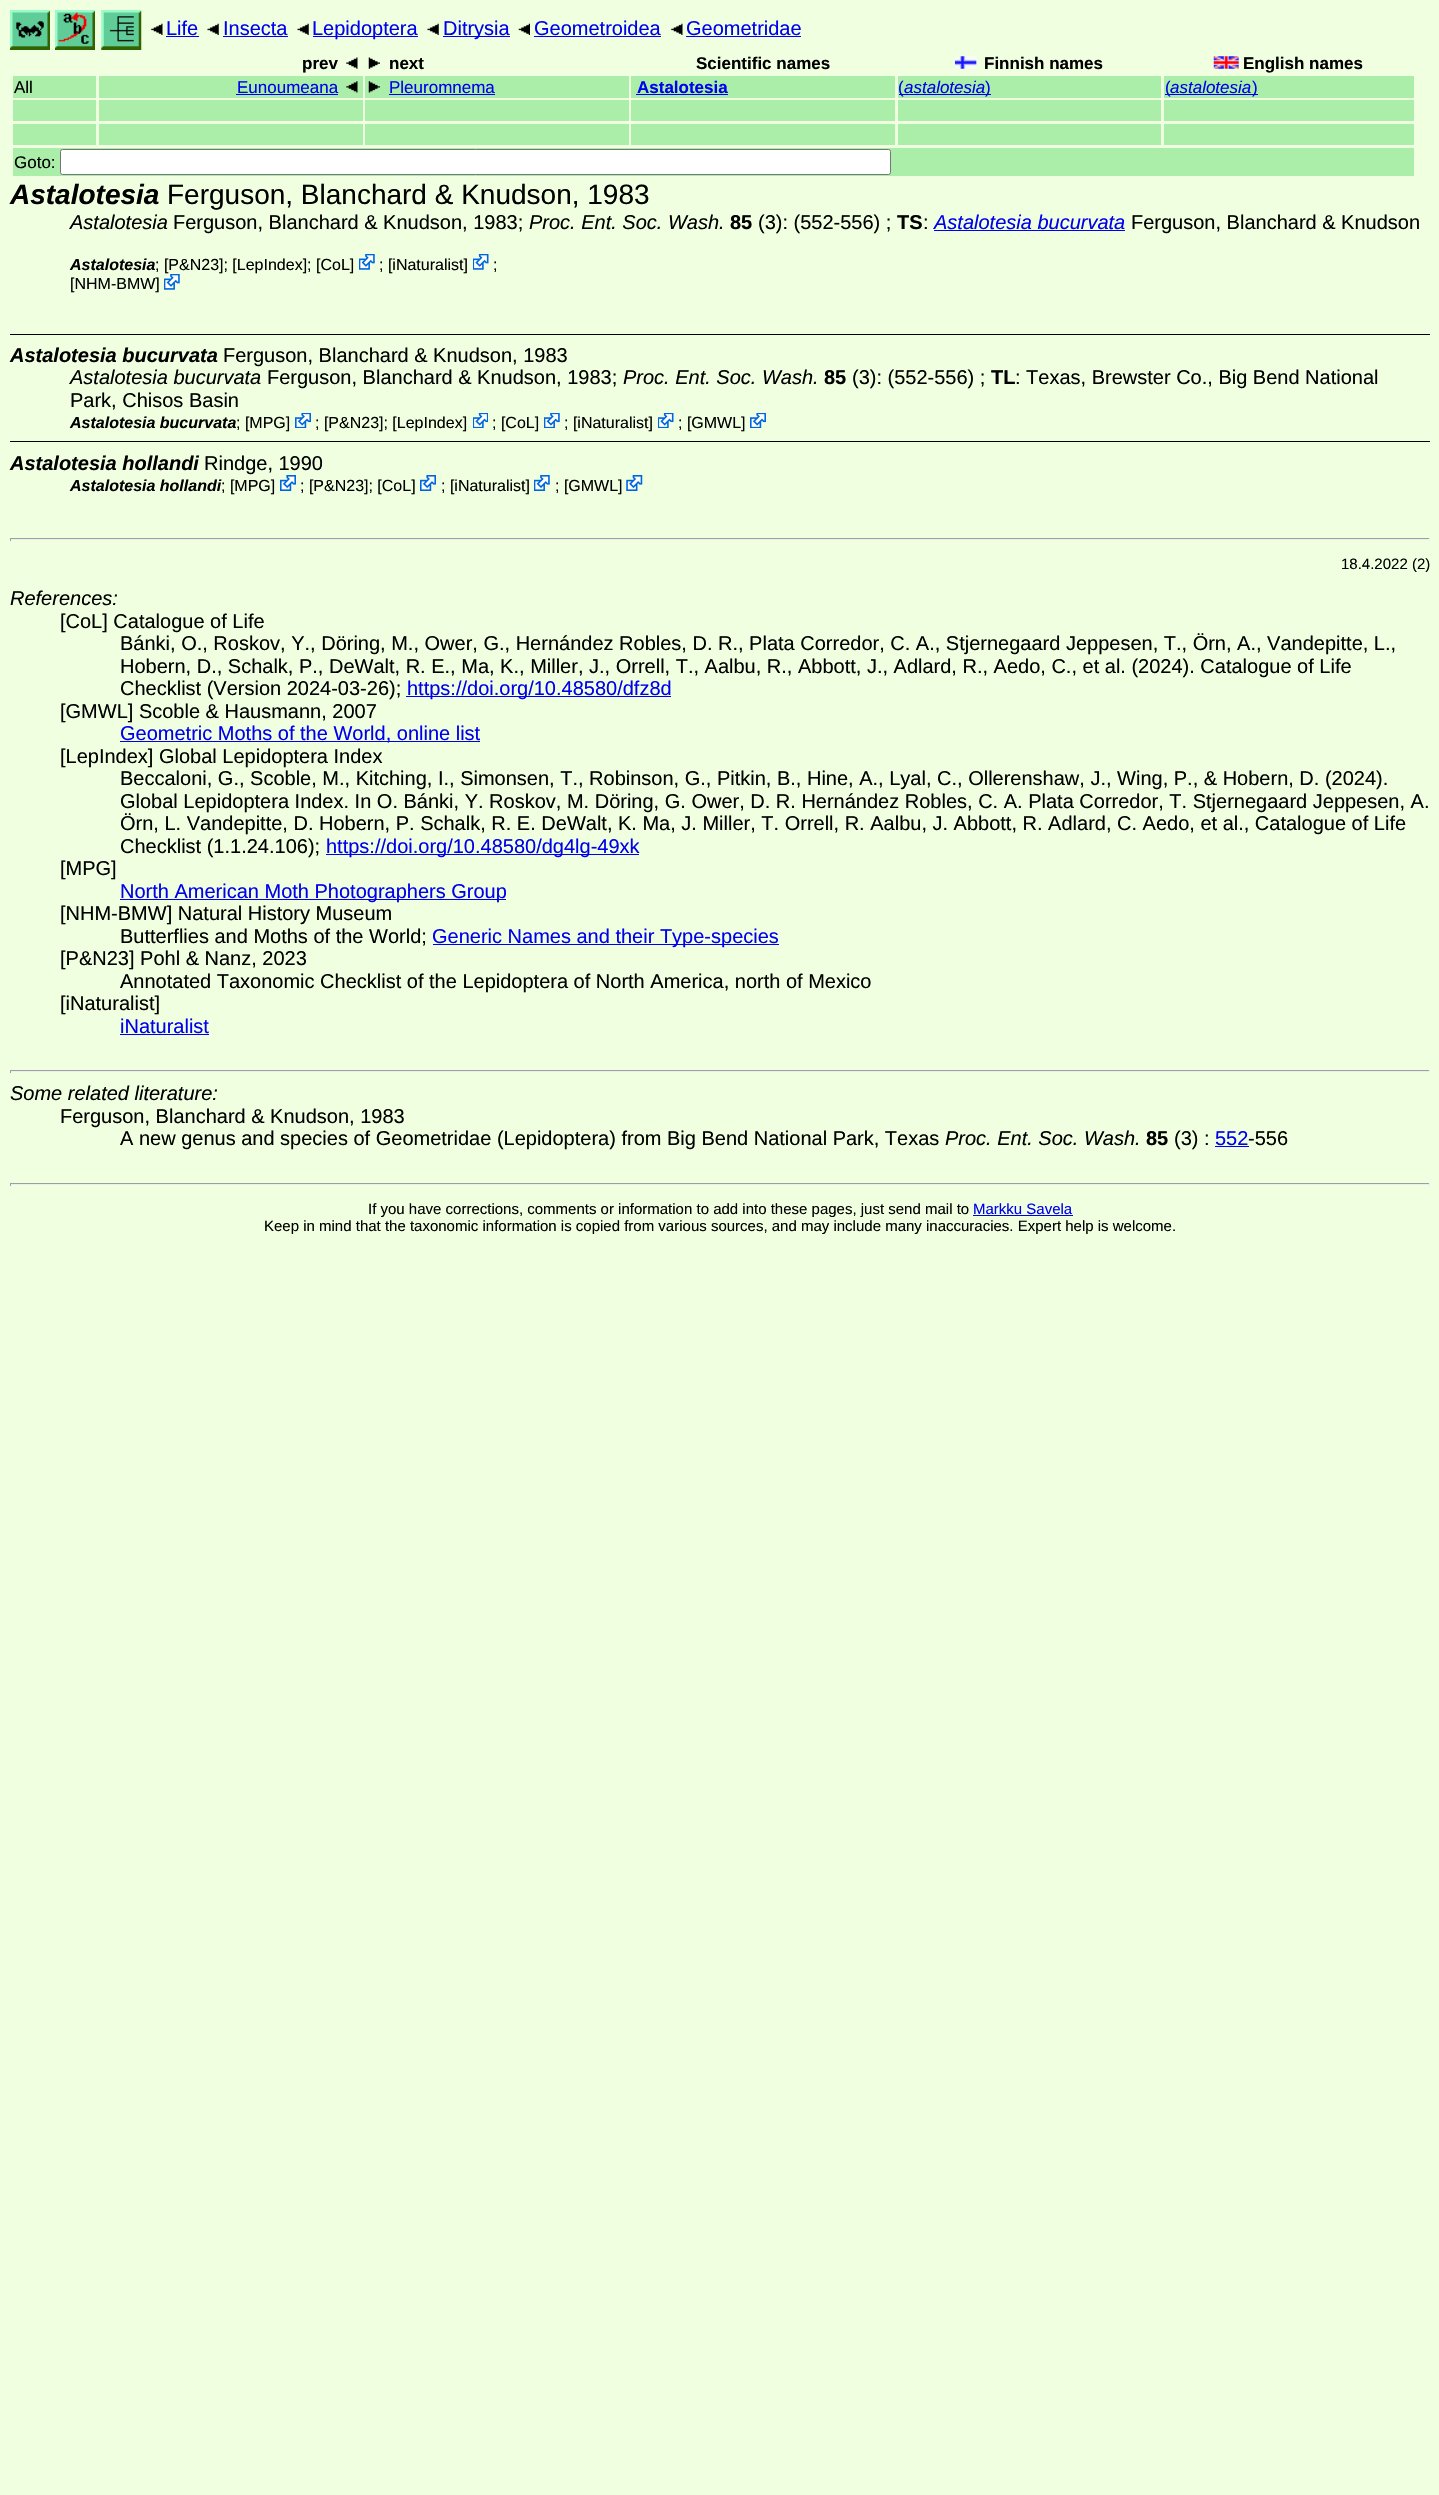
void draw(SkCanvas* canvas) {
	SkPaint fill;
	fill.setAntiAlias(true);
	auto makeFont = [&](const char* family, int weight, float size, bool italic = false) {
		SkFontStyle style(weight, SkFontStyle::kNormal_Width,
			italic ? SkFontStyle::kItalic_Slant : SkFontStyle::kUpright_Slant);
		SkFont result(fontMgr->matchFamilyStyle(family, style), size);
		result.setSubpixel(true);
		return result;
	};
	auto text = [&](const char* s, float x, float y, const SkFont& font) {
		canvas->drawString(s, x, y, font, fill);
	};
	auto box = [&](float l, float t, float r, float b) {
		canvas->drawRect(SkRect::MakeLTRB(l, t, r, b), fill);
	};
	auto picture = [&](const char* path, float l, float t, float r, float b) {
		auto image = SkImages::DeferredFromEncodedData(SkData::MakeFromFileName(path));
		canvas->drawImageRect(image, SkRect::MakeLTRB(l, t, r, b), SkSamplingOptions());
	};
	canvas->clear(0xFFF0FFE0);
	picture("image0.png", 10, 10, 50, 50);
	picture("image1.png", 55, 10, 95, 50);
	picture("image2.png", 101, 10, 142, 50);
	picture("image3.png", 151, 23, 163, 35);
	fill.setColor(0xFF0000EE);
	box(166, 36, 199, 37);
	picture("image4.png", 207, 23, 219, 35);
	box(223, 36, 288, 37);
	picture("image4.png", 297, 23, 309, 35);
	box(313, 36, 418, 37);
	picture("image4.png", 427, 23, 439, 35);
	box(443, 36, 510, 37);
	picture("image5.png", 518, 23, 530, 35);
	box(534, 36, 661, 37);
	picture("image3.png", 671, 23, 683, 35);
	box(686, 36, 801, 37);
	picture("image6.png", 346, 57, 358, 69);
	picture("image7.png", 368, 57, 380, 69);
	picture("image8.png", 955, 56, 977, 69);
	picture("image9.png", 1213, 56, 1239, 69);
	fill.setColor(0xFFAAEEAA);
	box(13, 76, 96, 98);
	box(99, 76, 363, 98);
	fill.setColor(0xFF0000EE);
	box(236, 94, 338, 95);
	picture("image10.png", 346, 81, 358, 93);
	fill.setColor(0xFFAAEEAA);
	box(365, 76, 629, 98);
	picture("image11.png", 368, 81, 380, 93);
	fill.setColor(0xFF0000EE);
	box(389, 94, 495, 95);
	fill.setColor(0xFFAAEEAA);
	box(631, 76, 895, 98);
	fill.setColor(0xFF0000EE);
	box(636, 94, 728, 95);
	fill.setColor(0xFFAAEEAA);
	box(898, 76, 1161, 98);
	fill.setColor(0xFF0000EE);
	box(899, 94, 991, 95);
	fill.setColor(0xFFAAEEAA);
	box(1164, 76, 1414, 98);
	fill.setColor(0xFF0000EE);
	box(1165, 94, 1170, 95);
	box(1170, 94, 1258, 95);
	fill.setColor(0xFFAAEEAA);
	box(13, 100, 96, 121);
	box(99, 100, 363, 121);
	box(365, 100, 629, 121);
	box(631, 100, 895, 121);
	box(898, 100, 1161, 121);
	box(1164, 100, 1414, 121);
	box(13, 124, 96, 145);
	box(99, 124, 363, 145);
	box(365, 124, 629, 145);
	box(631, 124, 895, 145);
	box(898, 124, 1161, 145);
	box(1164, 124, 1414, 145);
	box(13, 148, 1414, 176);
	fill.setColor(0xFFFFFFFF);
	canvas->drawRoundRect(SkRect::MakeLTRB(60.5f, 149.5f, 890.5f, 174.5f), 2, 2, fill);
	fill.setStyle(SkPaint::kStroke_Style);
	fill.setStrokeWidth(1);
	fill.setColor(0xFF767676);
	canvas->drawRoundRect(SkRect::MakeLTRB(60.5f, 149.5f, 890.5f, 174.5f), 2, 2, fill);
	fill.setStyle(SkPaint::kFill_Style);
	fill.setColor(0xFF0000EE);
	box(934, 230, 1125, 231);
	picture("image12.png", 359, 254, 375, 270);
	picture("image13.png", 473, 254, 489, 270);
	picture("image12.png", 164, 274, 180, 290);
	fill.setColor(0xFF000000);
	box(10, 334, 1430, 335);
	picture("image14.png", 295, 413, 311, 428);
	picture("image15.png", 473, 413, 488, 428);
	picture("image16.png", 544, 413, 560, 428);
	picture("image17.png", 658, 413, 674, 428);
	picture("image14.png", 750, 413, 766, 428);
	box(10, 441, 1430, 442);
	picture("image18.png", 280, 475, 296, 491);
	picture("image18.png", 420, 475, 436, 491);
	picture("image19.png", 534, 475, 550, 491);
	picture("image20.png", 626, 475, 643, 491);
	fill.setColor(0xFF9F9F9F);
	box(10, 538, 1430, 539);
	fill.setColor(0xFFEEEEEE);
	box(1429, 538, 1430, 541);
	box(10, 539, 1430, 540);
	fill.setColor(0xFF9F9F9F);
	box(10, 538, 11, 541);
	fill.setColor(0xFF0000EE);
	box(406, 696, 671, 697);
	box(120, 741, 480, 742);
	box(326, 854, 639, 855);
	box(120, 899, 506, 900);
	box(433, 944, 779, 945);
	box(120, 1034, 209, 1035);
	fill.setColor(0xFF9F9F9F);
	box(10, 1070, 1430, 1071);
	fill.setColor(0xFFEEEEEE);
	box(1429, 1070, 1430, 1073);
	box(10, 1071, 1430, 1072);
	fill.setColor(0xFF9F9F9F);
	box(10, 1070, 11, 1073);
	fill.setColor(0xFF0000EE);
	box(1215, 1146, 1249, 1147);
	fill.setColor(0xFF9F9F9F);
	box(10, 1183, 1430, 1184);
	fill.setColor(0xFFEEEEEE);
	box(1429, 1183, 1430, 1186);
	box(10, 1184, 1430, 1185);
	fill.setColor(0xFF9F9F9F);
	box(10, 1183, 11, 1186);
	fill.setColor(0xFF0000EE);
	box(973, 1215, 1073, 1216);
	auto font1 = makeFont("Liberation Sans", 400, 20);
	text("Life", 166, 35, font1);
	text("Insecta", 223, 35, font1);
	text("Lepidoptera", 312, 35, font1);
	text("Ditrysia", 443, 35, font1);
	text("Geometroidea", 534, 35, font1);
	text("Geometridae", 686, 35, font1);
	auto font2 = makeFont("Liberation Sans", 700, 17);
	fill.setColor(0xFF000000);
	text("prev", 302, 69, font2);
	text("next", 389, 69, font2);
	text("Scientific names", 696, 69, font2);
	text("Finnish names", 984, 69, font2);
	text("English names", 1243, 69, font2);
	auto font3 = makeFont("Liberation Sans", 400, 17);
	text("All", 14, 93, font3);
	fill.setColor(0xFF0000EE);
	text("Eunoumeana", 237, 93, font3);
	text("Pleuromnema", 389, 93, font3);
	text("Astalotesia", 637, 93, font2);
	text("(", 898, 93, font3);
	auto font4 = makeFont("Liberation Sans", 400, 17, true);
	text("astalotesia", 904, 93, font4);
	text(")", 985, 93, font3);
	text("(", 1165, 93, font3);
	text("astalotesia", 1170, 93, font4);
	text(")", 1252, 93, font3);
	fill.setColor(0xFF000000);
	text("Goto:", 14, 168, font3);
	auto font5 = makeFont("Liberation Sans", 700, 28, true);
	text("Astalotesia", 10, 204, font5);
	auto font6 = makeFont("Liberation Sans", 400, 28);
	text("Ferguson, Blanchard & Knudson, 1983", 167, 204, font6);
	auto font7 = makeFont("Liberation Sans", 400, 20, true);
	text("Astalotesia", 70, 229, font7);
	text("Ferguson, Blanchard & Knudson, 1983;", 173, 229, font1);
	text("Proc. Ent. Soc. Wash.", 529, 229, font7);
	auto font8 = makeFont("Liberation Sans", 700, 20);
	text("85", 730, 229, font8);
	text("(3): (552-556) ;", 758, 229, font1);
	text("TS", 897, 229, font8);
	text(":", 923, 229, font1);
	fill.setColor(0xFF0000EE);
	text("Astalotesia bucurvata", 934, 229, font7);
	fill.setColor(0xFF000000);
	text("Ferguson, Blanchard & Knudson", 1131, 229, font1);
	auto font9 = makeFont("Liberation Sans", 700, 16, true);
	text("Astalotesia", 70, 270, font9);
	auto font10 = makeFont("Liberation Sans", 400, 16);
	text("; [P&N23]; [LepIndex]; [CoL]", 155, 270, font10);
	text("; [iNaturalist]", 379, 270, font10);
	text(";", 493, 270, font10);
	text("[NHM-BMW]", 70, 289, font10);
	auto font11 = makeFont("Liberation Sans", 700, 20, true);
	text("Astalotesia bucurvata", 10, 362, font11);
	text("Ferguson, Blanchard & Knudson, 1983", 223, 362, font1);
	text("Astalotesia bucurvata", 70, 384, font7);
	text("Ferguson, Blanchard & Knudson, 1983;", 267, 384, font1);
	text("Proc. Ent. Soc. Wash.", 623, 384, font7);
	text("85", 824, 384, font8);
	text("(3): (552-556) ;", 852, 384, font1);
	text("TL", 991, 384, font8);
	text(": Texas, Brewster Co., Big Bend National", 1015, 384, font1);
	text("Park, Chisos Basin", 70, 407, font1);
	text("Astalotesia bucurvata", 70, 428, font9);
	text("; [MPG]", 236, 428, font10);
	text("; [P&N23]; [LepIndex]", 315, 428, font10);
	text("; [CoL]", 492, 428, font10);
	text("; [iNaturalist]", 564, 428, font10);
	text("; [GMWL]", 678, 428, font10);
	text("Astalotesia hollandi", 10, 470, font11);
	text("Rindge, 1990", 204, 470, font1);
	text("Astalotesia hollandi", 70, 491, font9);
	text("; [MPG]", 221, 491, font10);
	text("; [P&N23]; [CoL]", 300, 491, font10);
	text("; [iNaturalist]", 441, 491, font10);
	text("; [GMWL]", 555, 491, font10);
	auto font12 = makeFont("Liberation Sans", 400, 15);
	text("18.4.2022 (2)", 1341, 569, font12);
	text("References:", 10, 605, font7);
	text("[CoL] Catalogue of Life", 60, 628, font1);
	text("Bánki, O., Roskov, Y., Döring, M., Ower, G., Hernández Robles, D. R., Plata Corredor, C. A., Stjernegaard Jeppesen, T., Örn, A., Vandepitte, L.,", 120, 650, font1);
	text("Hobern, D., Schalk, P., DeWalt, R. E., Ma, K., Miller, J., Orrell, T., Aalbu, R., Abbott, J., Adlard, R., Aedo, C., et al. (2024). Catalogue of Life", 120, 673, font1);
	text("Checklist (Version 2024-03-26);", 120, 695, font1);
	fill.setColor(0xFF0000EE);
	text("https://doi.org/10.48580/dfz8d", 407, 695, font1);
	fill.setColor(0xFF000000);
	text("[GMWL] Scoble & Hausmann, 2007", 60, 718, font1);
	fill.setColor(0xFF0000EE);
	text("Geometric Moths of the World, online list", 120, 740, font1);
	fill.setColor(0xFF000000);
	text("[LepIndex] Global Lepidoptera Index", 60, 763, font1);
	text("Beccaloni, G., Scoble, M., Kitching, I., Simonsen, T., Robinson, G., Pitkin, B., Hine, A., Lyal, C., Ollerenshaw, J., Wing, P., & Hobern, D. (2024).", 120, 785, font1);
	text("Global Lepidoptera Index. In O. Bánki, Y. Roskov, M. Döring, G. Ower, D. R. Hernández Robles, C. A. Plata Corredor, T. Stjernegaard Jeppesen, A.", 120, 808, font1);
	text("Örn, L. Vandepitte, D. Hobern, P. Schalk, R. E. DeWalt, K. Ma, J. Miller, T. Orrell, R. Aalbu, J. Abbott, R. Adlard, C. Aedo, et al., Catalogue of Life", 120, 830, font1);
	text("Checklist (1.1.24.106);", 120, 853, font1);
	fill.setColor(0xFF0000EE);
	text("https://doi.org/10.48580/dg4lg-49xk", 326, 853, font1);
	fill.setColor(0xFF000000);
	text("[MPG]", 60, 875, font1);
	fill.setColor(0xFF0000EE);
	text("North American Moth Photographers Group", 120, 898, font1);
	fill.setColor(0xFF000000);
	text("[NHM-BMW] Natural History Museum", 60, 920, font1);
	text("Butterflies and Moths of the World;", 120, 943, font1);
	fill.setColor(0xFF0000EE);
	text("Generic Names and their Type-species", 432, 943, font1);
	fill.setColor(0xFF000000);
	text("[P&N23] Pohl & Nanz, 2023", 60, 965, font1);
	text("Annotated Taxonomic Checklist of the Lepidoptera of North America, north of Mexico", 120, 988, font1);
	text("[iNaturalist]", 60, 1010, font1);
	fill.setColor(0xFF0000EE);
	text("iNaturalist", 120, 1033, font1);
	fill.setColor(0xFF000000);
	text("Some related literature:", 10, 1100, font7);
	text("Ferguson, Blanchard & Knudson, 1983", 60, 1123, font1);
	text("A new genus and species of Geometridae (Lepidoptera) from Big Bend National Park, Texas", 120, 1145, font1);
	text("Proc. Ent. Soc. Wash.", 945, 1145, font7);
	text("85", 1146, 1145, font8);
	text("(3) :", 1174, 1145, font1);
	fill.setColor(0xFF0000EE);
	text("552", 1215, 1145, font1);
	fill.setColor(0xFF000000);
	text("-556", 1248, 1145, font1);
	text("If you have corrections, comments or information to add into these pages, just send mail to", 368, 1214, font12);
	fill.setColor(0xFF0000EE);
	text("Markku Savela", 973, 1214, font12);
	fill.setColor(0xFF000000);
	text("Keep in mind that the taxonomic information is copied from various sources, and may include many inaccuracies. Expert help is welcome.", 264, 1231, font12);
}
